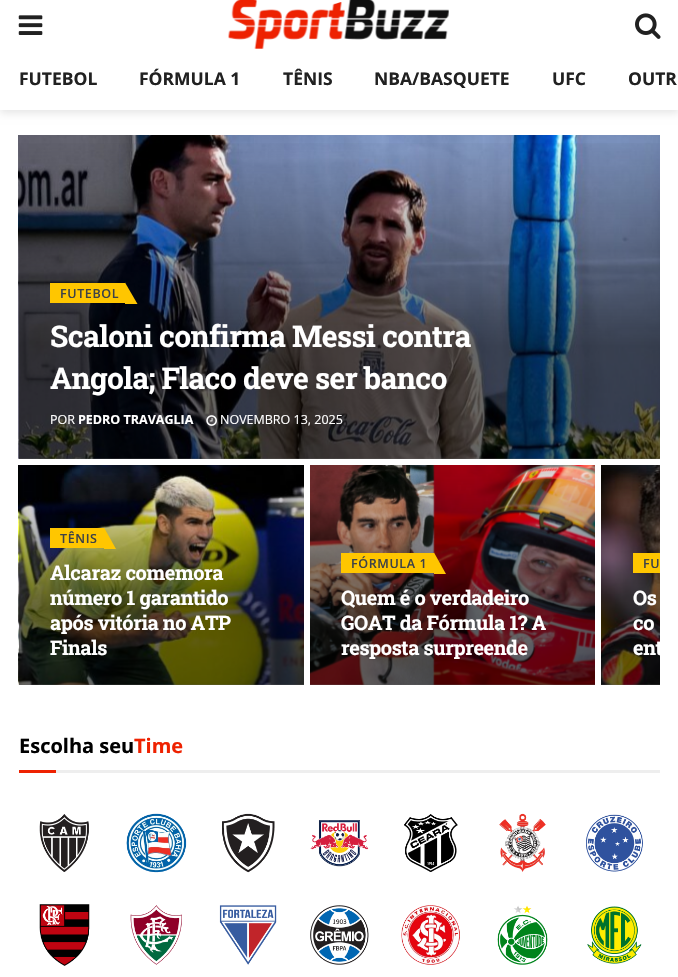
void draw(SkCanvas* canvas) {
	SkPaint fill;
	fill.setAntiAlias(true);
	auto makeFont = [&](const char* family, int weight, float size, bool italic = false) {
		SkFontStyle style(weight, SkFontStyle::kNormal_Width,
			italic ? SkFontStyle::kItalic_Slant : SkFontStyle::kUpright_Slant);
		SkFont result(fontMgr->matchFamilyStyle(family, style), size);
		result.setSubpixel(true);
		return result;
	};
	auto text = [&](const char* s, float x, float y, const SkFont& font) {
		canvas->drawString(s, x, y, font, fill);
	};
	auto spacedText = [&](const char* s, float x, float y, const SkFont& font, const SkPaint& ink, float letter, float word) {
		std::vector<SkGlyphID> glyphs(font.countText(s, strlen(s), SkTextEncoding::kUTF8));
		std::vector<float> xs(glyphs.size());
		font.textToGlyphs(s, strlen(s), SkTextEncoding::kUTF8, glyphs);
		font.getXPos(glyphs, xs, x);
		float extra = 0;
		for (size_t i = 0; i < glyphs.size(); i++) {
			xs[i] += extra;
			extra += letter + word * (glyphs[i] == font.unicharToGlyph(' '));
		}
		canvas->drawTextBlob(SkTextBlob::MakeFromPosHGlyphs(glyphs, xs, y, font), 0, 0, ink);
	};
	auto box = [&](float l, float t, float r, float b) {
		canvas->drawRect(SkRect::MakeLTRB(l, t, r, b), fill);
	};
	auto picture = [&](const char* path, float l, float t, float r, float b) {
		auto image = SkImages::DeferredFromEncodedData(SkData::MakeFromFileName(path));
		canvas->drawImageRect(image, SkRect::MakeLTRB(l, t, r, b), SkSamplingOptions());
	};
	canvas->clear(0xFFFFFFFF);
	fill.setColor(0x1A000000);
	fill.setMaskFilter(SkMaskFilter::MakeBlur(kNormal_SkBlurStyle, 4));
	canvas->drawRect(SkRect::MakeLTRB(0, 3, 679, 113), fill);
	fill.setMaskFilter(nullptr);
	fill.setColor(0xFFFFFFFF);
	box(0, 0, 678, 110);
	picture("image0.png", 18, 15, 43, 35);
	picture("image1.png", 228, 0, 449, 49);
	picture("image2.png", 635, 13, 661, 39);
	picture("image3.png", 18, 135, 660, 459);
	{
		const SkColor colors[] = {0x00000000, 0x99000000, 0x99000000};
		const float stops[] = {0, 0.65f, 1};
		const SkPoint ends[] = {{321, 135}, {321, 459}};
		fill.setShader(SkGradientShader::MakeLinear(ends, colors, stops, 3, SkTileMode::kClamp));
		fill.setAlpha(255);
	}
	box(19, 143, 660, 459);
	fill.setShader(nullptr);
	fill.setColor(0xFFFFC600);
	box(50, 283, 125, 303);
	canvas->drawPath(SkPathBuilder().moveTo(137.5f, 304).lineTo(125, 304).lineTo(125, 282.5f).close().detach(), fill);
	picture("image4.png", 206, 415, 217, 426);
	picture("image5.png", 18, 465, 304, 685);
	{
		const SkColor colors[] = {0x00000000, 0x99000000, 0x99000000};
		const float stops[] = {0, 0.65f, 1};
		const SkPoint ends[] = {{143, 465}, {143, 685}};
		fill.setShader(SkGradientShader::MakeLinear(ends, colors, stops, 3, SkTileMode::kClamp));
		fill.setAlpha(255);
	}
	box(19, 476, 304, 685);
	fill.setShader(nullptr);
	fill.setColor(0xFFFFC600);
	box(50, 528, 104, 548);
	canvas->drawPath(SkPathBuilder().moveTo(116, 549).lineTo(104, 549).lineTo(104, 527.5f).close().detach(), fill);
	picture("image6.png", 310, 465, 595, 685);
	{
		const SkColor colors[] = {0x00000000, 0x99000000, 0x99000000};
		const float stops[] = {0, 0.65f, 1};
		const SkPoint ends[] = {{434, 465}, {434, 685}};
		fill.setShader(SkGradientShader::MakeLinear(ends, colors, stops, 3, SkTileMode::kClamp));
		fill.setAlpha(255);
	}
	box(310, 470, 595, 685);
	fill.setShader(nullptr);
	fill.setColor(0xFFFFC600);
	box(341, 553, 434, 573);
	canvas->drawPath(SkPathBuilder().moveTo(446, 574).lineTo(434, 574).lineTo(434, 552.5f).close().detach(), fill);
	picture("image7.png", 601, 465, 660, 685);
	{
		const SkColor colors[] = {0x00000000, 0x99000000, 0x99000000};
		const float stops[] = {0, 0.65f, 1};
		const SkPoint ends[] = {{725, 465}, {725, 685}};
		fill.setShader(SkGradientShader::MakeLinear(ends, colors, stops, 3, SkTileMode::kClamp));
		fill.setAlpha(255);
	}
	box(601, 476, 660, 685);
	fill.setShader(nullptr);
	fill.setColor(0xFFFFC600);
	box(633, 553, 660, 573);
	fill.setColor(0xFFEEEEEE);
	box(56, 770, 660, 773);
	fill.setColor(0xFFEE2201);
	box(19, 770, 56, 773);
	picture("image8.png", 39, 814, 89, 872);
	picture("image9.png", 126, 813, 187, 873);
	picture("image10.png", 222, 813, 275, 873);
	picture("image11.png", 310, 820, 369, 867);
	picture("image12.png", 404, 814, 458, 872);
	picture("image13.png", 499, 813, 546, 872);
	picture("image14.png", 586, 814, 643, 872);
	picture("image15.png", 39, 904, 90, 966);
	picture("image16.png", 130, 905, 182, 965);
	picture("image17.png", 219, 905, 277, 965);
	picture("image18.png", 310, 905, 369, 965);
	picture("image19.png", 401, 905, 460, 965);
	picture("image20.png", 497, 905, 548, 965);
	picture("image21.png", 587, 906, 642, 964);
	auto font1 = makeFont("Open Sans", 700, 17.5f);
	fill.setColor(0xFF212121);
	text("FUTEBOL", 19, 85, font1);
	text("FÓRMULA 1", 139, 85, font1);
	text("TÊNIS", 283, 85, font1);
	text("NBA/BASQUETE", 374, 85, font1);
	text("UFC", 552, 85, font1);
	text("OUTR", 628, 85, font1);
	auto font2 = makeFont("Open Sans", 600, 12.5f);
	fill.setColor(0xFF3D4248);
	spacedText("FUTEBOL", 60, 298, font2, fill, 0.6f, 0);
	auto font3 = makeFont("Roboto Slab", 700, 30);
	fill.setColor(0xFFFFFFFF);
	spacedText("Scaloni confirma Messi contra", 50, 347, font3, fill, -0.6f, 0);
	spacedText("Angola; Flaco deve ser banco", 50, 389, font3, fill, -0.6f, 0);
	auto font4 = makeFont("Open Sans", 400, 12.5f);
	text("POR", 50, 424, font4);
	auto font5 = makeFont("Open Sans", 700, 12.5f);
	text("PEDRO TRAVAGLIA", 78, 424, font5);
	text("NOVEMBRO 13, 2025", 220, 424, font4);
	fill.setColor(0xFF3D4248);
	spacedText("TÊNIS", 60, 543, font2, fill, 0.6f, 0);
	auto font6 = makeFont("Roboto Slab", 700, 20);
	fill.setColor(0xFFFFFFFF);
	spacedText("Alcaraz comemora", 50, 580, font6, fill, -0.4f, 0);
	spacedText("número 1 garantido", 50, 605, font6, fill, -0.4f, 0);
	spacedText("após vitória no ATP", 50, 630, font6, fill, -0.4f, 0);
	spacedText("Finals", 50, 655, font6, fill, -0.4f, 0);
	fill.setColor(0xFF3D4248);
	spacedText("FÓRMULA 1", 351, 568, font2, fill, 0.6f, 0);
	fill.setColor(0xFFFFFFFF);
	spacedText("Quem é o verdadeiro", 341, 605, font6, fill, -0.4f, 0);
	spacedText("GOAT da Fórmula 1? A", 341, 630, font6, fill, -0.4f, 0);
	spacedText("resposta surpreende", 341, 655, font6, fill, -0.4f, 0);
	fill.setColor(0xFF3D4248);
	spacedText("FU", 643, 568, font2, fill, 0.6f, 0);
	fill.setColor(0xFFFFFFFF);
	spacedText("Os", 633, 605, font6, fill, -0.4f, 0);
	spacedText("co", 633, 630, font6, fill, -0.4f, 0);
	canvas->save();
	canvas->clipRect(SkRect::MakeLTRB(601, 465, 660, 685));
	spacedText("ent", 633, 655, font6, fill, -0.4f, 0);
	canvas->restore();
	auto font7 = makeFont("Open Sans", 700, 20);
	fill.setColor(0xFF000000);
	text("Escolha seu", 19, 753, font7);
	fill.setColor(0xFFEE2201);
	text("Time", 134, 753, font7);
}
